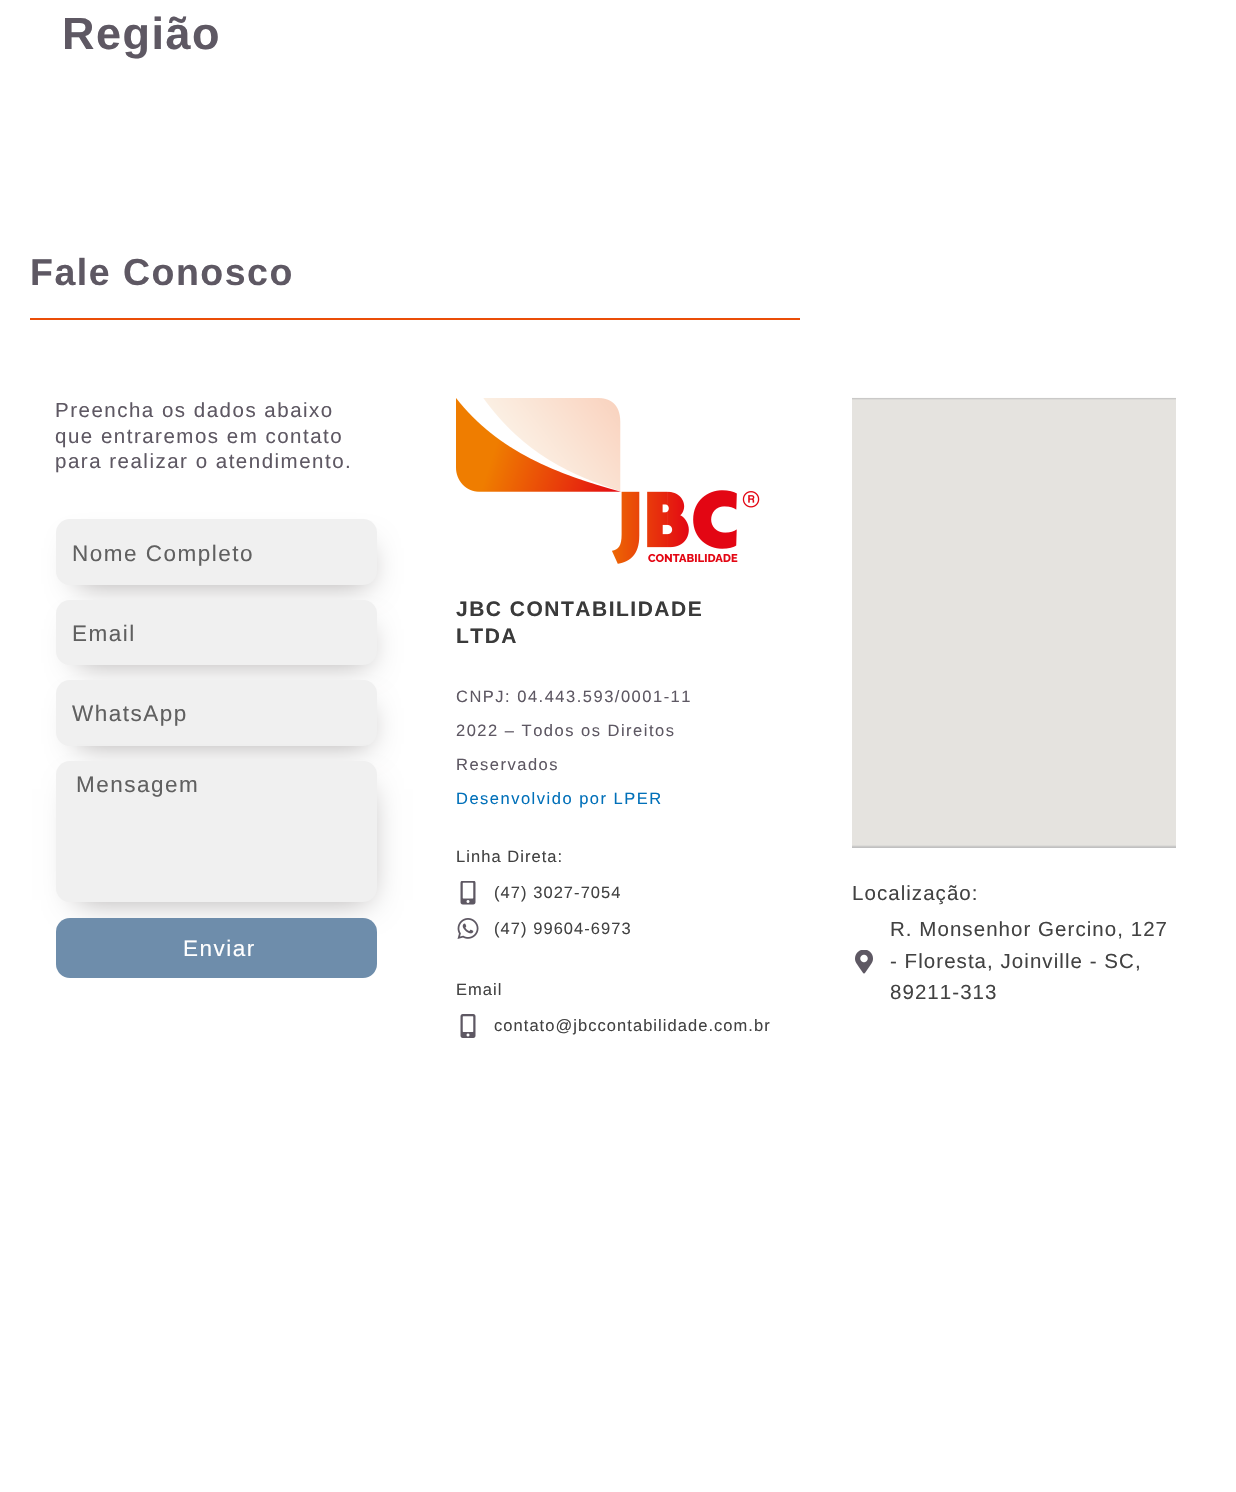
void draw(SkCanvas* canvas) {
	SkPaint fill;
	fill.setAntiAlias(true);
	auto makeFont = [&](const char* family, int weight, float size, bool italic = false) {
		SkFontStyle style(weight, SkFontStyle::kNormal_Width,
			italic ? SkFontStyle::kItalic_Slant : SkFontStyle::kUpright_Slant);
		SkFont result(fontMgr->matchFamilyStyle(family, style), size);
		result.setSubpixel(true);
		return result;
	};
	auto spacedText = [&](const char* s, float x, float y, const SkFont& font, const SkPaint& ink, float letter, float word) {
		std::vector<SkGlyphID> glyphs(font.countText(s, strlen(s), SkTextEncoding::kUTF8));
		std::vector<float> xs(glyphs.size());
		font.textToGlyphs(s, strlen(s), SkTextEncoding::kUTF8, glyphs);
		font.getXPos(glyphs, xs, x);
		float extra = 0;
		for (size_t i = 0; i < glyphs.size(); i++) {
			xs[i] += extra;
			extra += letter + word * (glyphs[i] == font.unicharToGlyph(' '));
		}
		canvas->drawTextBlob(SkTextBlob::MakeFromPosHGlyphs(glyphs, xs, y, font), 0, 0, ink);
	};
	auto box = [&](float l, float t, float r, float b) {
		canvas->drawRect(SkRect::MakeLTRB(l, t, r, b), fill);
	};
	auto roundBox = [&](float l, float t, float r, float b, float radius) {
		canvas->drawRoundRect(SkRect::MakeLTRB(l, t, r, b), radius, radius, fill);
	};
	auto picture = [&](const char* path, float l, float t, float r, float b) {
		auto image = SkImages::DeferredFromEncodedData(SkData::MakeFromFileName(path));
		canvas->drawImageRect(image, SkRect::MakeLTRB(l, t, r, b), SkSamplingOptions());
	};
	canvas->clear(0xFFFFFFFF);
	fill.setColor(0xFFEA4E08);
	box(30, 318, 800, 320);
	fill.setColor(0xFFA9A6A6);
	fill.setMaskFilter(SkMaskFilter::MakeBlur(kNormal_SkBlurStyle, 15));
	canvas->drawRect(SkRect::MakeLTRB(77, 548, 368, 584), fill);
	fill.setMaskFilter(nullptr);
	fill.setColor(0xFFF0F0F0);
	roundBox(56, 519, 377, 585, 14);
	fill.setColor(0xFFA9A6A6);
	fill.setMaskFilter(SkMaskFilter::MakeBlur(kNormal_SkBlurStyle, 15));
	canvas->drawRect(SkRect::MakeLTRB(77, 629, 368, 663), fill);
	fill.setMaskFilter(nullptr);
	fill.setColor(0xFFF0F0F0);
	roundBox(56, 600, 377, 665, 14);
	fill.setColor(0xFFA9A6A6);
	fill.setMaskFilter(SkMaskFilter::MakeBlur(kNormal_SkBlurStyle, 15));
	canvas->drawRect(SkRect::MakeLTRB(77, 708, 368, 744), fill);
	fill.setMaskFilter(nullptr);
	fill.setColor(0xFFF0F0F0);
	roundBox(56, 680, 377, 746, 14);
	fill.setColor(0xFFA9A6A6);
	fill.setMaskFilter(SkMaskFilter::MakeBlur(kNormal_SkBlurStyle, 15));
	canvas->drawRect(SkRect::MakeLTRB(77, 789, 368, 900), fill);
	fill.setMaskFilter(nullptr);
	fill.setColor(0xFFF0F0F0);
	roundBox(56, 761, 377, 902, 14);
	fill.setColor(0xFF6E8DAB);
	roundBox(56, 918, 377, 978, 14);
	picture("image0.png", 456, 398, 760, 564);
	picture("image1.png", 460, 881, 476, 905);
	picture("image2.png", 457, 918, 479, 939);
	picture("image3.png", 460, 1014, 476, 1038);
	picture("image4.png", 852, 397, 1176, 848);
	picture("image5.png", 855, 950, 873, 974);
	auto font1 = makeFont("Liberation Sans", 700, 45);
	fill.setColor(0xFF5E5863);
	spacedText("Região", 62, 49, font1, fill, 1.5f, 0);
	auto font2 = makeFont("Liberation Sans", 700, 37.5f);
	spacedText("Fale Conosco", 30, 285, font2, fill, 1.5f, 0);
	auto font3 = makeFont("Liberation Sans", 400, 20.5f);
	spacedText("Preencha os dados abaixo", 55, 417, font3, fill, 1.5f, 0);
	spacedText("que entraremos em contato", 55, 443, font3, fill, 1.5f, 0);
	spacedText("para realizar o atendimento.", 55, 468, font3, fill, 1.5f, 0);
	auto font4 = makeFont("Liberation Sans", 400, 22.5f);
	fill.setColor(0xFF606060);
	spacedText("Nome Completo", 72, 561, font4, fill, 1.5f, 0);
	spacedText("Email", 72, 641, font4, fill, 1.5f, 0);
	spacedText("WhatsApp", 72, 721, font4, fill, 1.5f, 0);
	spacedText("Mensagem", 76, 792, font4, fill, 1.5f, 0);
	fill.setColor(0xFFFFFFFF);
	spacedText("Enviar", 183, 956, font4, fill, 1.5f, 0);
	auto font5 = makeFont("Liberation Sans", 700, 21);
	fill.setColor(0xFF3A3A3A);
	spacedText("JBC CONTABILIDADE", 456, 616, font5, fill, 1.5f, 0);
	spacedText("LTDA", 456, 643, font5, fill, 1.5f, 0);
	auto font6 = makeFont("Liberation Sans", 400, 16.5f);
	fill.setColor(0xFF5E5863);
	spacedText("CNPJ: 04.443.593/0001-11", 456, 702, font6, fill, 1.5f, 0);
	spacedText("2022 – Todos os Direitos", 456, 736, font6, fill, 1.5f, 0);
	spacedText("Reservados", 456, 770, font6, fill, 1.5f, 0);
	fill.setColor(0xFF0170B9);
	spacedText("Desenvolvido por LPER", 456, 804, font6, fill, 1.5f, 0);
	fill.setColor(0xFF424242);
	spacedText("Linha Direta:", 456, 862, font6, fill, 1.05f, 0);
	spacedText("(47) 3027-7054", 494, 898, font6, fill, 1.05f, 0);
	spacedText("(47) 99604-6973", 494, 934, font6, fill, 1.05f, 0);
	spacedText("Email", 456, 995, font6, fill, 1.05f, 0);
	spacedText("contato@jbccontabilidade.com.br", 494, 1031, font6, fill, 1.05f, 0);
	spacedText("Localização:", 852, 900, font3, fill, 1.05f, 0);
	spacedText("R. Monsenhor Gercino, 127", 890, 936, font3, fill, 1.05f, 0);
	spacedText("- Floresta, Joinville - SC,", 890, 968, font3, fill, 1.05f, 0);
	spacedText("89211-313", 890, 999, font3, fill, 1.05f, 0);
}
